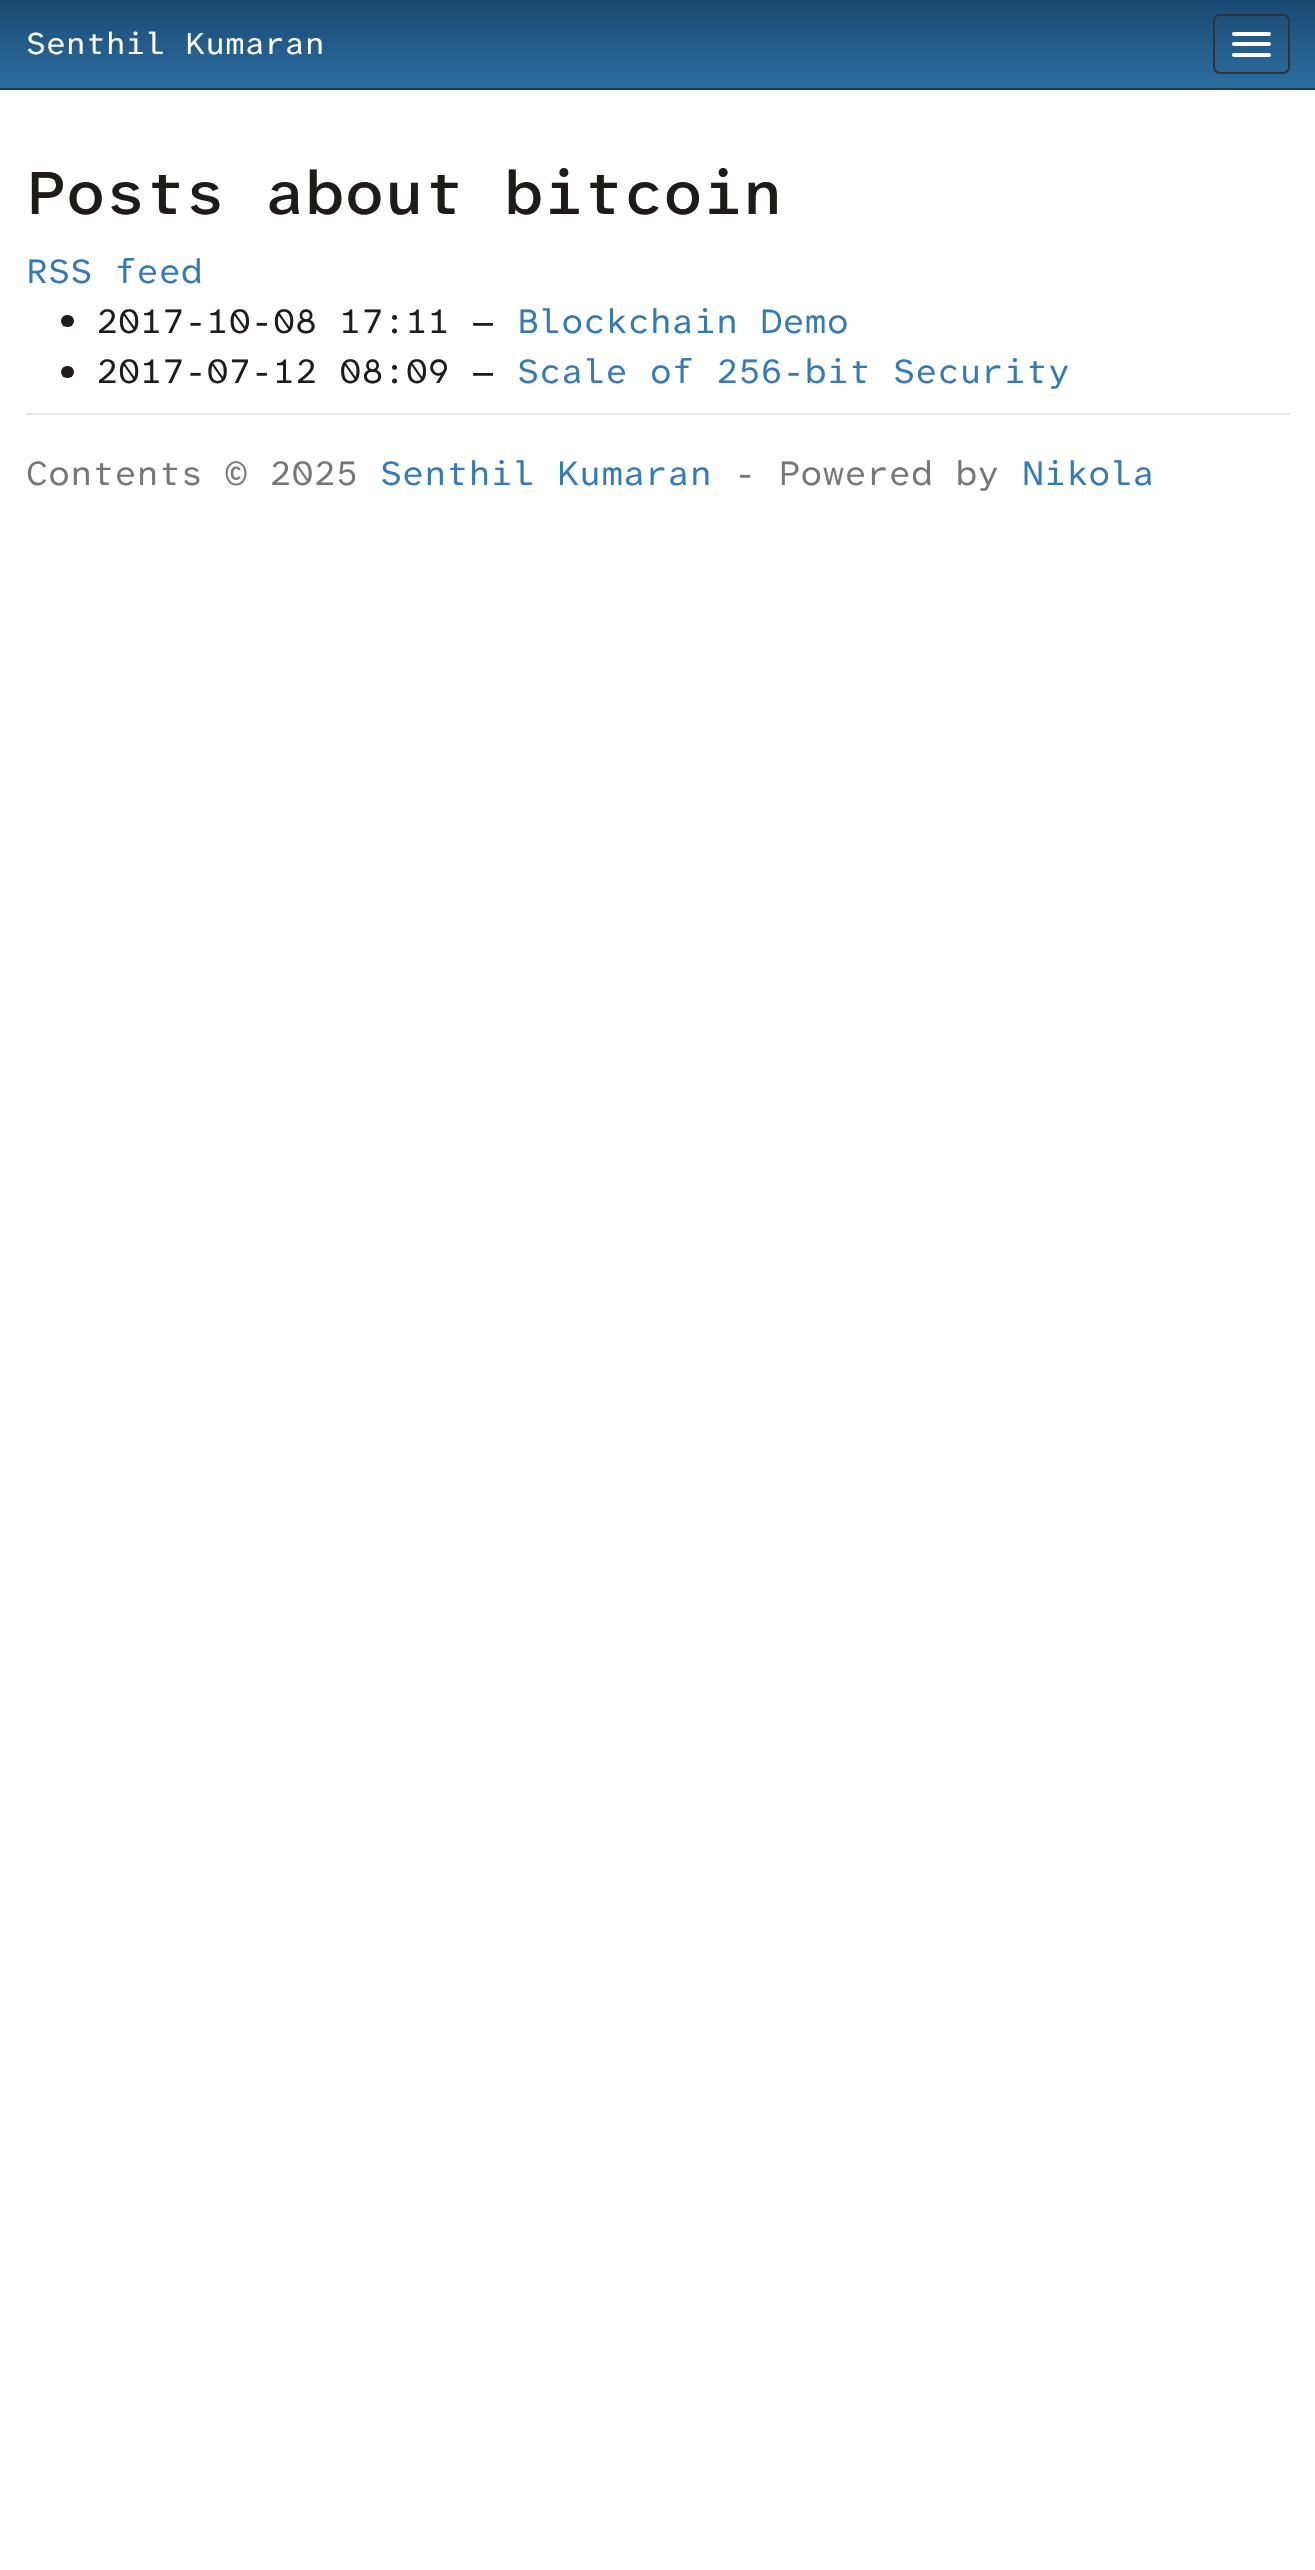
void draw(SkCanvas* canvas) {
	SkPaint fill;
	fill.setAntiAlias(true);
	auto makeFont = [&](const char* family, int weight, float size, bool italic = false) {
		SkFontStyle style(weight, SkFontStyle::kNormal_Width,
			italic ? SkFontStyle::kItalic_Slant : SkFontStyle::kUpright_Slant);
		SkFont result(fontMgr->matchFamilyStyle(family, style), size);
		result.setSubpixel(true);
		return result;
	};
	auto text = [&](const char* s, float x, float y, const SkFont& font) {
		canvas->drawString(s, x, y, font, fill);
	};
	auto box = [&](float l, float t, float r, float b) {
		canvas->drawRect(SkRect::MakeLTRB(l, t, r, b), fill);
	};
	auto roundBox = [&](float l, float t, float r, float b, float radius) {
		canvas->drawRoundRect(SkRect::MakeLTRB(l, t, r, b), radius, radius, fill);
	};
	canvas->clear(0xFFFFFFFF);
	{
		const SkColor colors[] = {0xFF1A4A73, 0xFF2C6DA0};
		const float stops[] = {0, 1};
		const SkPoint ends[] = {{658, 0}, {658, 88}};
		fill.setShader(SkGradientShader::MakeLinear(ends, colors, stops, 2, SkTileMode::kClamp));
		fill.setAlpha(255);
	}
	box(0, 0, 1315, 88);
	fill.setShader(nullptr);
	fill.setColor(0xFF16405F);
	box(0, 88, 1315, 90);
	fill.setStyle(SkPaint::kStroke_Style);
	fill.setStrokeWidth(2);
	fill.setColor(0xFF333333);
	canvas->drawRoundRect(SkRect::MakeLTRB(1214, 15, 1289, 73), 6, 6, fill);
	fill.setStyle(SkPaint::kFill_Style);
	fill.setColor(0xFFFFFFFF);
	roundBox(1232, 32, 1271, 36, 2);
	roundBox(1232, 42, 1271, 46, 2);
	roundBox(1232, 53, 1271, 57, 2);
	fill.setColor(0xFF201B1B);
	roundBox(61, 315, 74, 327, 6);
	roundBox(61, 366, 74, 378, 6);
	fill.setColor(0xFFE5E5E5);
	box(26, 413, 1290, 415);
	auto font1 = makeFont("Atkinson Hyperlegible Mono", 400, 31.5f);
	fill.setColor(0xFFFFFFFF);
	text("Senthil Kumaran", 26, 54, font1);
	auto font2 = makeFont("Atkinson Hyperlegible Mono", 500, 63);
	fill.setColor(0xFF201B1B);
	text("Posts about bitcoin", 26, 214, font2);
	auto font3 = makeFont("Atkinson Hyperlegible Mono", 400, 35);
	fill.setColor(0xFF337AB7);
	text("RSS feed", 26, 283, font3);
	fill.setColor(0xFF201B1B);
	text("2017-10-08 17:11 —", 96, 333, font3);
	fill.setColor(0xFF337AB7);
	text("Blockchain Demo", 517, 333, font3);
	fill.setColor(0xFF201B1B);
	text("2017-07-12 08:09 —", 96, 383, font3);
	fill.setColor(0xFF337AB7);
	text("Scale of 256-bit Security", 517, 383, font3);
	fill.setColor(0xFF777777);
	text("Contents © 2025", 26, 485, font3);
	fill.setColor(0xFF337AB7);
	text("Senthil Kumaran", 380, 485, font3);
	fill.setColor(0xFF777777);
	text("- Powered by", 734, 485, font3);
	fill.setColor(0xFF337AB7);
	text("Nikola", 1022, 485, font3);
}
